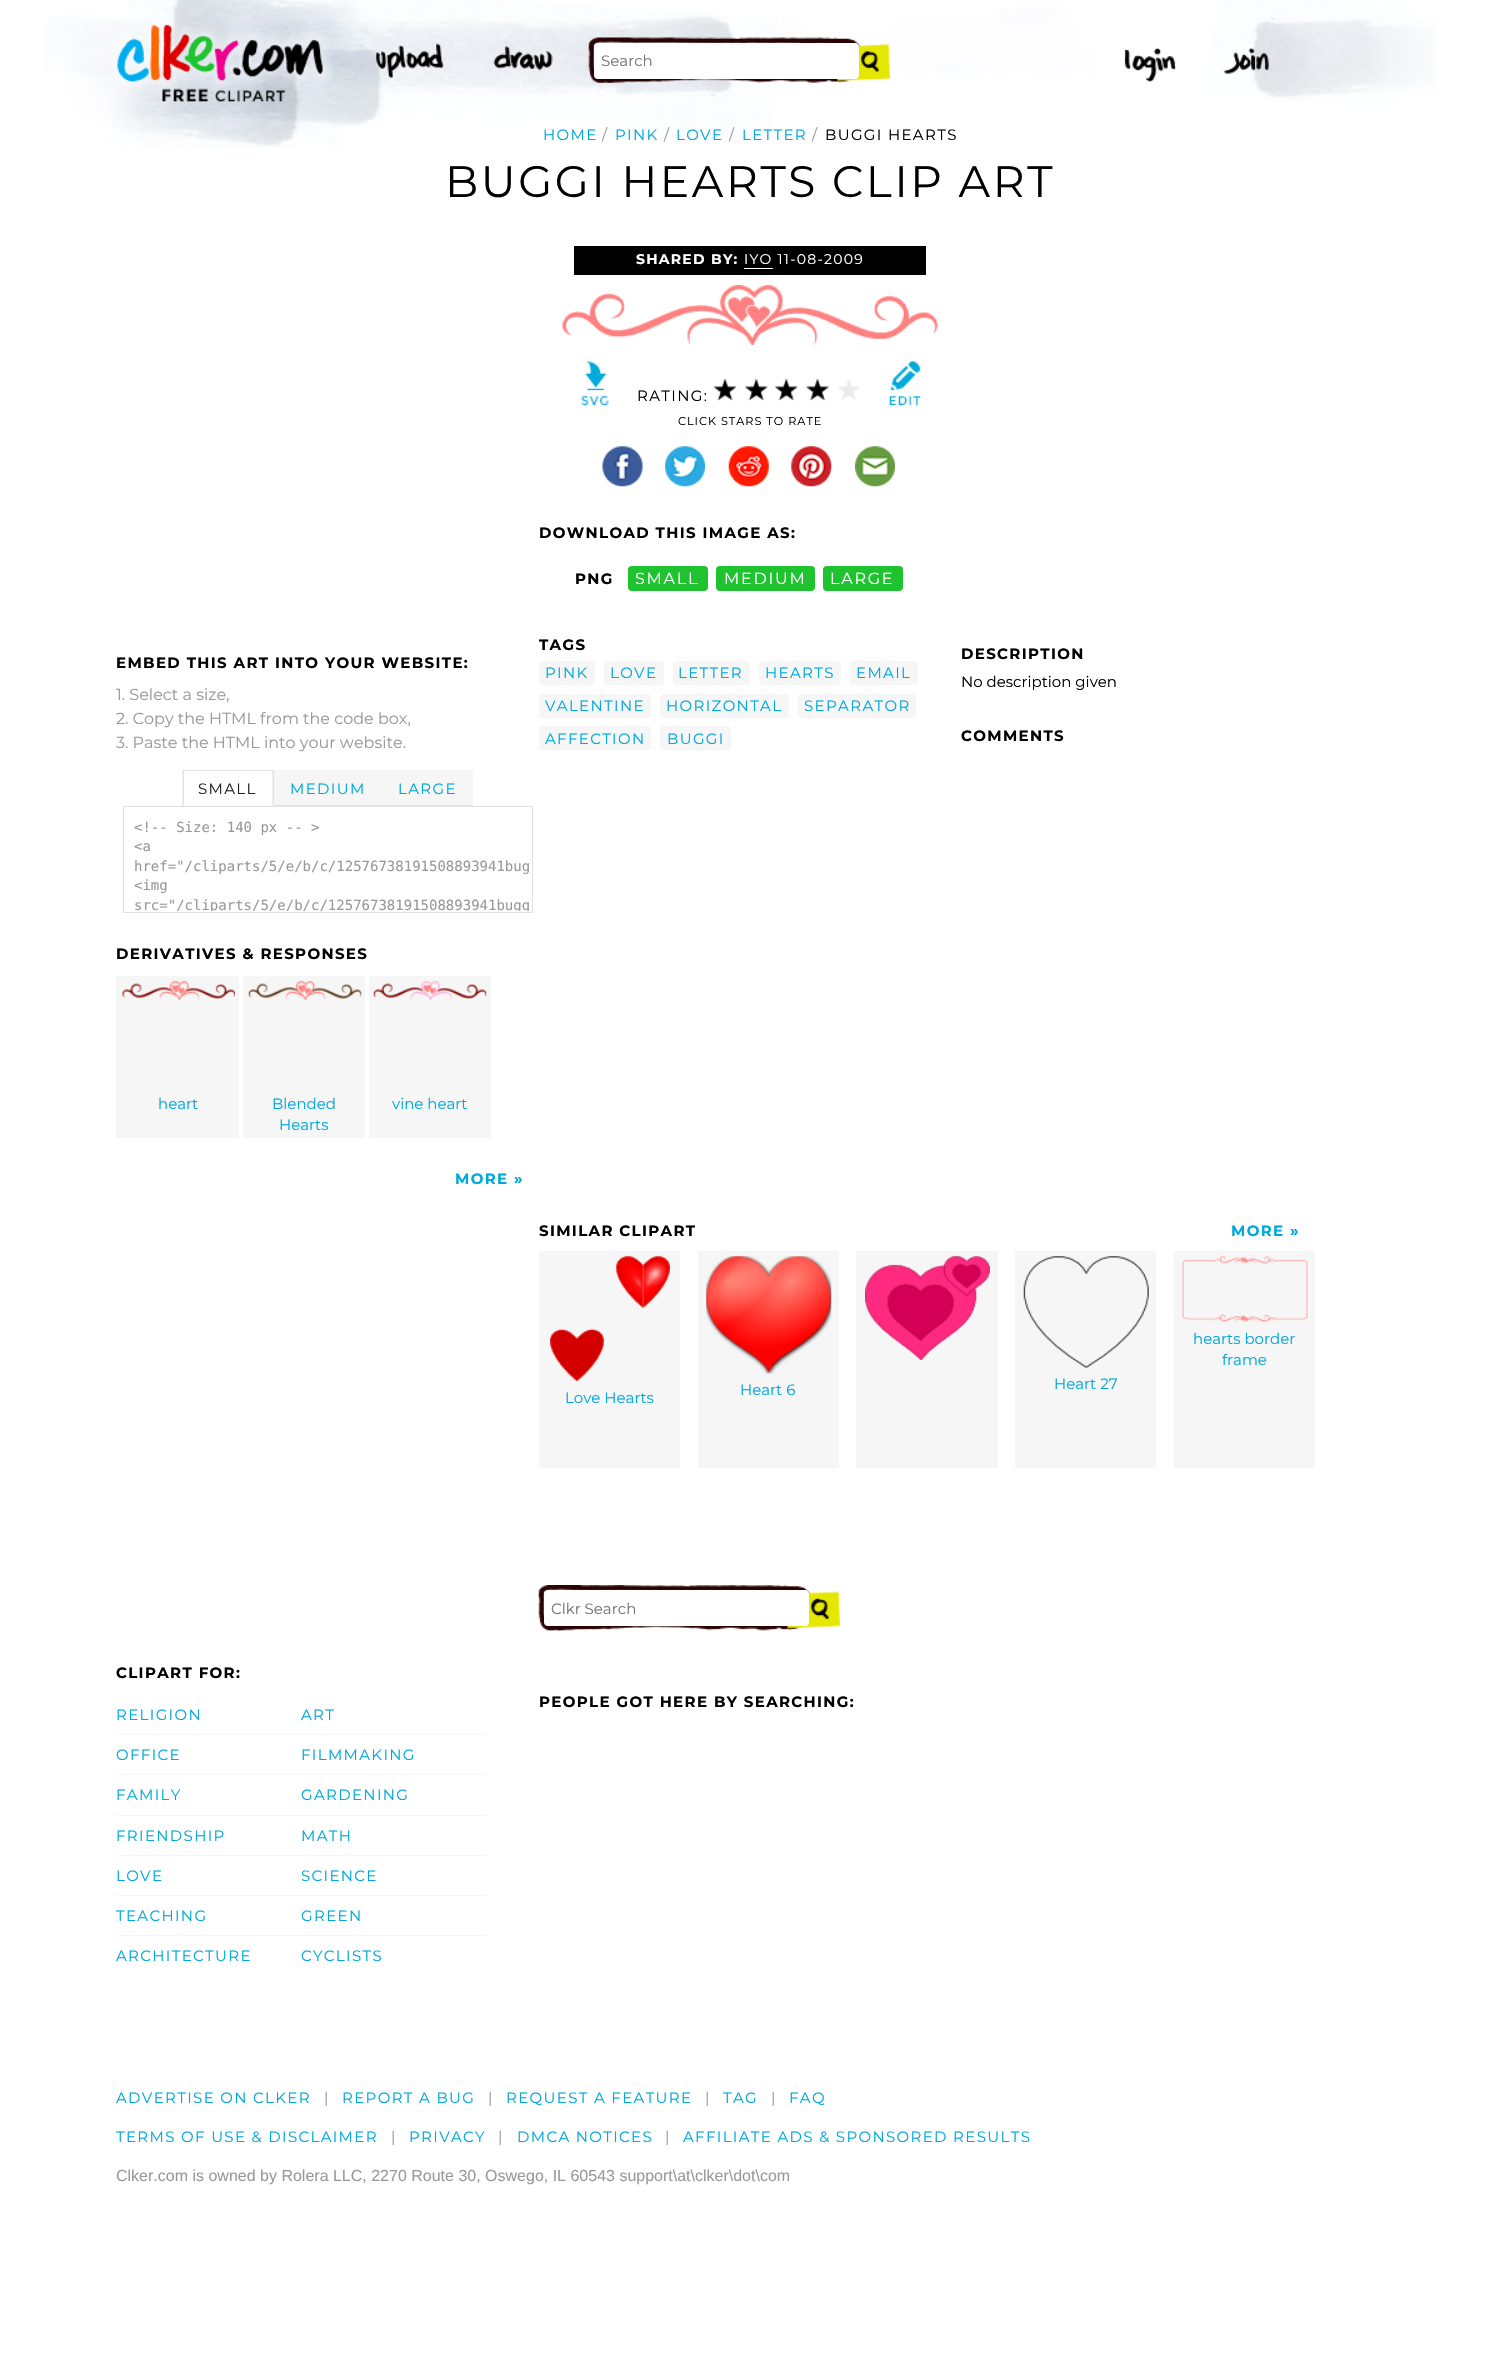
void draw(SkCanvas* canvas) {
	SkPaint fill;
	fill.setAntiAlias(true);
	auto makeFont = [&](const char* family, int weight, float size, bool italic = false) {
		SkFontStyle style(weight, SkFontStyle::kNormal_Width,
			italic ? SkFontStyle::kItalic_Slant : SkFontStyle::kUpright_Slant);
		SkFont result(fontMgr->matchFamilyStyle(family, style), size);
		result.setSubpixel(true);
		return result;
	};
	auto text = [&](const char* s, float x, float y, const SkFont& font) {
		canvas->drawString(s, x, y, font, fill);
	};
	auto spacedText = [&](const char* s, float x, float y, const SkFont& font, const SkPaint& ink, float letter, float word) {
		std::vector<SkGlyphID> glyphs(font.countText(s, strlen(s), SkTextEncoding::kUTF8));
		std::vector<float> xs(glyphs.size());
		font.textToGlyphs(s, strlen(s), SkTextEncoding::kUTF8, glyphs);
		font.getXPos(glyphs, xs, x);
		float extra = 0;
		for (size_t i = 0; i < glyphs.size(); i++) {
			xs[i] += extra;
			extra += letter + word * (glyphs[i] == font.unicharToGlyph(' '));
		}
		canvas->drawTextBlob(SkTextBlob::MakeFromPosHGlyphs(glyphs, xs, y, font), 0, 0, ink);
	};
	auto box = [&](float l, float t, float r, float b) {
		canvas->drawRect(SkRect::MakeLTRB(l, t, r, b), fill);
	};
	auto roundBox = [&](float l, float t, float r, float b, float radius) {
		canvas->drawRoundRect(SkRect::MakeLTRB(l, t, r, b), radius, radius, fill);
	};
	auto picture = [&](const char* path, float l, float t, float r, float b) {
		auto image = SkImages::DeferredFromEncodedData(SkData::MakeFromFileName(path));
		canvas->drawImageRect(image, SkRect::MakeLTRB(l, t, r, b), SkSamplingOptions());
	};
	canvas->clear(0xFFFFFFFF);
	picture("image0.png", 45, 0, 1436, 148);
	picture("image1.png", 111, 16, 332, 102);
	picture("image2.png", 376, 43, 444, 78);
	picture("image3.png", 493, 46, 553, 71);
	picture("image4.png", 588, 37, 890, 84);
	fill.setColor(0xFFFFFFFF);
	roundBox(594, 43, 859, 79, 4);
	picture("image5.png", 1124, 48, 1176, 82);
	picture("image6.png", 1223, 48, 1269, 74);
	fill.setColor(0xFFE1E1E1);
	box(183, 770, 274, 771);
	canvas->drawPath(SkPathBuilder().moveTo(274, 770).lineTo(274, 809).lineTo(272.5f, 805).lineTo(272.5f, 771).close().detach(), fill);
	fill.setColor(0xFFFFFFFF);
	canvas->drawPath(SkPathBuilder().moveTo(274, 809).lineTo(182, 809).lineTo(184, 805).lineTo(272, 805).close().detach(), fill);
	fill.setColor(0xFFE1E1E1);
	canvas->drawPath(SkPathBuilder().moveTo(182.5f, 809).lineTo(182.5f, 770).lineTo(184, 771).lineTo(184, 805).close().detach(), fill);
	fill.setColor(0xFFF6F6F6);
	box(275, 770, 381, 805);
	fill.setColor(0xFFE1E1E1);
	box(274, 805, 473, 806);
	fill.setColor(0xFFF6F6F6);
	box(274, 770, 275, 806);
	box(382, 770, 473, 805);
	box(381, 770, 382, 806);
	fill.setStyle(SkPaint::kStroke_Style);
	fill.setStrokeWidth(1);
	fill.setColor(0xFFE1E1E1);
	canvas->drawRect(SkRect::MakeLTRB(123.5f, 806.5f, 532.5f, 912.5f), fill);
	fill.setStyle(SkPaint::kFill_Style);
	fill.setColor(0xFFF6F6F6);
	box(116, 976, 239, 1138);
	picture("image7.png", 122, 981, 235, 1000);
	box(243, 976, 365, 1138);
	picture("image8.png", 248, 981, 362, 1000);
	box(369, 976, 491, 1138);
	picture("image9.png", 373, 981, 487, 1000);
	fill.setColor(0xFF000000);
	box(574, 246, 926, 275);
	fill.setColor(0xFFFFFFFF);
	box(744, 268, 773, 269);
	picture("image10.png", 562, 285, 938, 345);
	picture("image11.png", 581, 361, 609, 406);
	picture("image12.png", 888, 361, 922, 406);
	picture("image13.png", 713, 378, 737, 401);
	picture("image14.png", 745, 378, 768, 401);
	picture("image14.png", 775, 378, 798, 401);
	picture("image15.png", 806, 378, 829, 401);
	picture("image16.png", 838, 379, 860, 400);
	picture("image17.png", 602, 446, 643, 487);
	picture("image18.png", 665, 446, 705, 487);
	picture("image19.png", 728, 446, 769, 487);
	picture("image20.png", 791, 446, 832, 487);
	picture("image21.png", 855, 446, 895, 487);
	fill.setColor(0xFF1FC22F);
	roundBox(628, 566, 708, 591, 4);
	roundBox(716, 566, 815, 591, 4);
	roundBox(823, 566, 903, 591, 4);
	fill.setColor(0xFFF6F6F6);
	roundBox(539, 661, 595, 685, 4);
	roundBox(604, 661, 664, 685, 4);
	roundBox(673, 661, 750, 685, 4);
	roundBox(759, 661, 841, 685, 4);
	roundBox(850, 661, 918, 685, 4);
	roundBox(539, 694, 651, 718, 4);
	roundBox(660, 694, 789, 718, 4);
	roundBox(798, 694, 916, 718, 4);
	roundBox(539, 726, 651, 750, 4);
	roundBox(660, 726, 731, 750, 4);
	box(856, 1251, 998, 1468);
	picture("image22.png", 865, 1256, 990, 1360);
	box(1174, 1251, 1315, 1468);
	picture("image23.png", 1182, 1256, 1308, 1323);
	box(698, 1251, 839, 1468);
	picture("image24.png", 706, 1256, 832, 1374);
	box(1015, 1251, 1156, 1468);
	picture("image25.png", 1023, 1256, 1149, 1368);
	box(539, 1251, 680, 1468);
	picture("image26.png", 550, 1256, 670, 1382);
	picture("image27.png", 538, 1585, 840, 1631);
	fill.setColor(0xFFFFFFFF);
	roundBox(544, 1590, 809, 1626, 4);
	fill.setColor(0xFFF6F6F6);
	box(116, 1734, 486, 1735);
	box(116, 1774, 486, 1775);
	box(116, 1815, 486, 1816);
	box(116, 1855, 486, 1856);
	box(116, 1895, 486, 1896);
	box(116, 1935, 486, 1936);
	auto font1 = makeFont("Montserrat", 400, 15);
	fill.setColor(0xFF757575);
	text("Search", 601, 66, font1);
	fill.setColor(0xFF00A9DB);
	spacedText("HOME", 543, 140, font1, fill, 1.35f, 0);
	fill.setColor(0xFF999999);
	spacedText("/", 602, 140, font1, fill, 1.35f, 0);
	fill.setColor(0xFF00A9DB);
	spacedText("PINK", 615, 140, font1, fill, 1.35f, 0);
	fill.setColor(0xFF999999);
	spacedText("/", 664, 140, font1, fill, 1.35f, 0);
	fill.setColor(0xFF00A9DB);
	spacedText("LOVE", 676, 140, font1, fill, 1.35f, 0);
	fill.setColor(0xFF999999);
	spacedText("/", 729, 140, font1, fill, 1.35f, 0);
	fill.setColor(0xFF00A9DB);
	spacedText("LETTER", 742, 140, font1, fill, 1.35f, 0);
	fill.setColor(0xFF999999);
	spacedText("/", 812, 140, font1, fill, 1.35f, 0);
	fill.setColor(0xFF000000);
	spacedText("BUGGI HEARTS", 825, 140, font1, fill, 1.35f, 0);
	auto font2 = makeFont("Montserrat", 400, 44);
	spacedText("BUGGI HEARTS CLIP ART", 445, 197, font2, fill, 2.6f, 0);
	auto font3 = makeFont("Montserrat", 700, 15);
	spacedText("EMBED THIS ART INTO YOUR WEBSITE:", 116, 668, font3, fill, 1.35f, 0);
	auto font4 = makeFont("Montserrat", 400, 16);
	fill.setColor(0xFF999999);
	text("1. Select a size,", 116, 700, font4);
	text("2. Copy the HTML from the code box,", 116, 724, font4);
	text("3. Paste the HTML into your website.", 116, 748, font4);
	fill.setColor(0xFF222222);
	spacedText("SMALL", 198, 794, font1, fill, 1.35f, 0);
	fill.setColor(0xFF00A9DB);
	spacedText("MEDIUM", 290, 794, font1, fill, 1.35f, 0);
	spacedText("LARGE", 398, 794, font1, fill, 1.35f, 0);
	auto font5 = makeFont("DejaVu Sans Mono", 400, 14);
	fill.setColor(0xFF999999);
	text("<!-- Size: 140 px -- >", 134, 832, font5);
	text("<a", 134, 851, font5);
	text("href=\"/cliparts/5/e/b/c/12576738191508893941bug", 134, 871, font5);
	text("<img", 134, 890, font5);
	canvas->save();
	canvas->clipRect(SkRect::MakeLTRB(124, 808, 531, 911));
	text("src=\"/cliparts/5/e/b/c/12576738191508893941bugg", 134, 910, font5);
	canvas->restore();
	fill.setColor(0xFF000000);
	spacedText("DERIVATIVES & RESPONSES", 116, 959, font3, fill, 1.35f, 0);
	fill.setColor(0xFF00A9DB);
	text("heart", 158, 1109, font1);
	text("Blended", 272, 1109, font1);
	text("Hearts", 279, 1130, font1);
	text("vine heart", 392, 1109, font1);
	spacedText("MORE »", 455, 1184, font3, fill, 1.35f, 0);
	auto font6 = makeFont("Montserrat", 700, 14);
	fill.setColor(0xFFFFFFFF);
	spacedText("SHARED BY:", 636, 264, font6, fill, 1.25f, 0);
	auto font7 = makeFont("Montserrat", 400, 14);
	spacedText("IYO 11-08-2009", 744, 264, font7, fill, 1.25f, 0);
	fill.setColor(0xFF000000);
	spacedText("RATING:", 637, 401, font1, fill, 1.35f, 0);
	auto font8 = makeFont("Montserrat", 400, 11.25f);
	spacedText("CLICK STARS TO RATE", 678, 425, font8, fill, 1, 0);
	spacedText("DOWNLOAD THIS IMAGE AS:", 539, 538, font3, fill, 1.35f, 0);
	spacedText("PNG", 575, 584, font3, fill, 1.35f, 0);
	fill.setColor(0xFFFFFFFF);
	spacedText("SMALL", 635, 584, font4, fill, 1.75f, 0);
	spacedText("MEDIUM", 724, 584, font4, fill, 1.75f, 0);
	spacedText("LARGE", 830, 584, font4, fill, 1.75f, 0);
	fill.setColor(0xFF000000);
	spacedText("TAGS", 539, 650, font3, fill, 1.35f, 0);
	fill.setColor(0xFF00A9DB);
	spacedText("PINK", 545, 678, font1, fill, 1.35f, 0);
	spacedText("LOVE", 610, 678, font1, fill, 1.35f, 0);
	spacedText("LETTER", 678, 678, font1, fill, 1.35f, 0);
	spacedText("HEARTS", 765, 678, font1, fill, 1.35f, 0);
	spacedText("EMAIL", 856, 678, font1, fill, 1.35f, 0);
	spacedText("VALENTINE", 545, 711, font1, fill, 1.35f, 0);
	spacedText("HORIZONTAL", 666, 711, font1, fill, 1.35f, 0);
	spacedText("SEPARATOR", 804, 711, font1, fill, 1.35f, 0);
	spacedText("AFFECTION", 545, 744, font1, fill, 1.35f, 0);
	spacedText("BUGGI", 667, 744, font1, fill, 1.35f, 0);
	fill.setColor(0xFF000000);
	spacedText("DESCRIPTION", 961, 659, font3, fill, 1.35f, 0);
	text("No description given", 961, 687, font1);
	spacedText("COMMENTS", 961, 741, font3, fill, 1.35f, 0);
	spacedText("SIMILAR CLIPART", 539, 1236, font3, fill, 1.35f, 0);
	fill.setColor(0xFF00A9DB);
	spacedText("MORE »", 1231, 1236, font3, fill, 1.35f, 0);
	text("hearts border", 1193, 1344, font1);
	text("frame", 1222, 1365, font1);
	text("Heart 6", 740, 1395, font1);
	text("Heart 27", 1054, 1389, font1);
	text("Love Hearts", 565, 1403, font1);
	fill.setColor(0xFF757575);
	text("Clkr Search", 551, 1614, font1);
	fill.setColor(0xFF000000);
	spacedText("PEOPLE GOT HERE BY SEARCHING:", 539, 1707, font3, fill, 1.35f, 0);
	spacedText("CLIPART FOR:", 116, 1678, font3, fill, 1.35f, 0);
	fill.setColor(0xFF00A9DB);
	spacedText("RELIGION", 116, 1720, font1, fill, 1.35f, 0);
	spacedText("OFFICE", 116, 1760, font1, fill, 1.35f, 0);
	spacedText("FAMILY", 116, 1800, font1, fill, 1.35f, 0);
	spacedText("FRIENDSHIP", 116, 1841, font1, fill, 1.35f, 0);
	spacedText("LOVE", 116, 1881, font1, fill, 1.35f, 0);
	spacedText("TEACHING", 116, 1921, font1, fill, 1.35f, 0);
	spacedText("ARCHITECTURE", 116, 1961, font1, fill, 1.35f, 0);
	spacedText("ART", 301, 1720, font1, fill, 1.35f, 0);
	spacedText("FILMMAKING", 301, 1760, font1, fill, 1.35f, 0);
	spacedText("GARDENING", 301, 1800, font1, fill, 1.35f, 0);
	spacedText("MATH", 301, 1841, font1, fill, 1.35f, 0);
	spacedText("SCIENCE", 301, 1881, font1, fill, 1.35f, 0);
	spacedText("GREEN", 301, 1921, font1, fill, 1.35f, 0);
	spacedText("CYCLISTS", 301, 1961, font1, fill, 1.35f, 0);
	spacedText("ADVERTISE ON CLKER", 116, 2103, font1, fill, 1.35f, 0);
	fill.setColor(0xFF999999);
	spacedText("|", 324, 2103, font1, fill, 1.35f, 0);
	fill.setColor(0xFF00A9DB);
	spacedText("REPORT A BUG", 342, 2103, font1, fill, 1.35f, 0);
	fill.setColor(0xFF999999);
	spacedText("|", 488, 2103, font1, fill, 1.35f, 0);
	fill.setColor(0xFF00A9DB);
	spacedText("REQUEST A FEATURE", 506, 2103, font1, fill, 1.35f, 0);
	fill.setColor(0xFF999999);
	spacedText("|", 705, 2103, font1, fill, 1.35f, 0);
	fill.setColor(0xFF00A9DB);
	spacedText("TAG", 723, 2103, font1, fill, 1.35f, 0);
	fill.setColor(0xFF999999);
	spacedText("|", 771, 2103, font1, fill, 1.35f, 0);
	fill.setColor(0xFF00A9DB);
	spacedText("FAQ", 789, 2103, font1, fill, 1.35f, 0);
	spacedText("TERMS OF USE & DISCLAIMER", 116, 2142, font1, fill, 1.35f, 0);
	fill.setColor(0xFF999999);
	spacedText("|", 391, 2142, font1, fill, 1.35f, 0);
	fill.setColor(0xFF00A9DB);
	spacedText("PRIVACY", 409, 2142, font1, fill, 1.35f, 0);
	fill.setColor(0xFF999999);
	spacedText("|", 498, 2142, font1, fill, 1.35f, 0);
	fill.setColor(0xFF00A9DB);
	spacedText("DMCA NOTICES", 517, 2142, font1, fill, 1.35f, 0);
	fill.setColor(0xFF999999);
	spacedText("|", 665, 2142, font1, fill, 1.35f, 0);
	fill.setColor(0xFF00A9DB);
	spacedText("AFFILIATE ADS & SPONSORED RESULTS", 683, 2142, font1, fill, 1.35f, 0);
	auto font9 = makeFont("Liberation Sans", 400, 16);
	fill.setColor(0xFF999999);
	text("Clker.com is owned by Rolera LLC, 2270 Route 30, Oswego, IL 60543 support\\at\\clker\\dot\\com", 116, 2181, font9);
}
